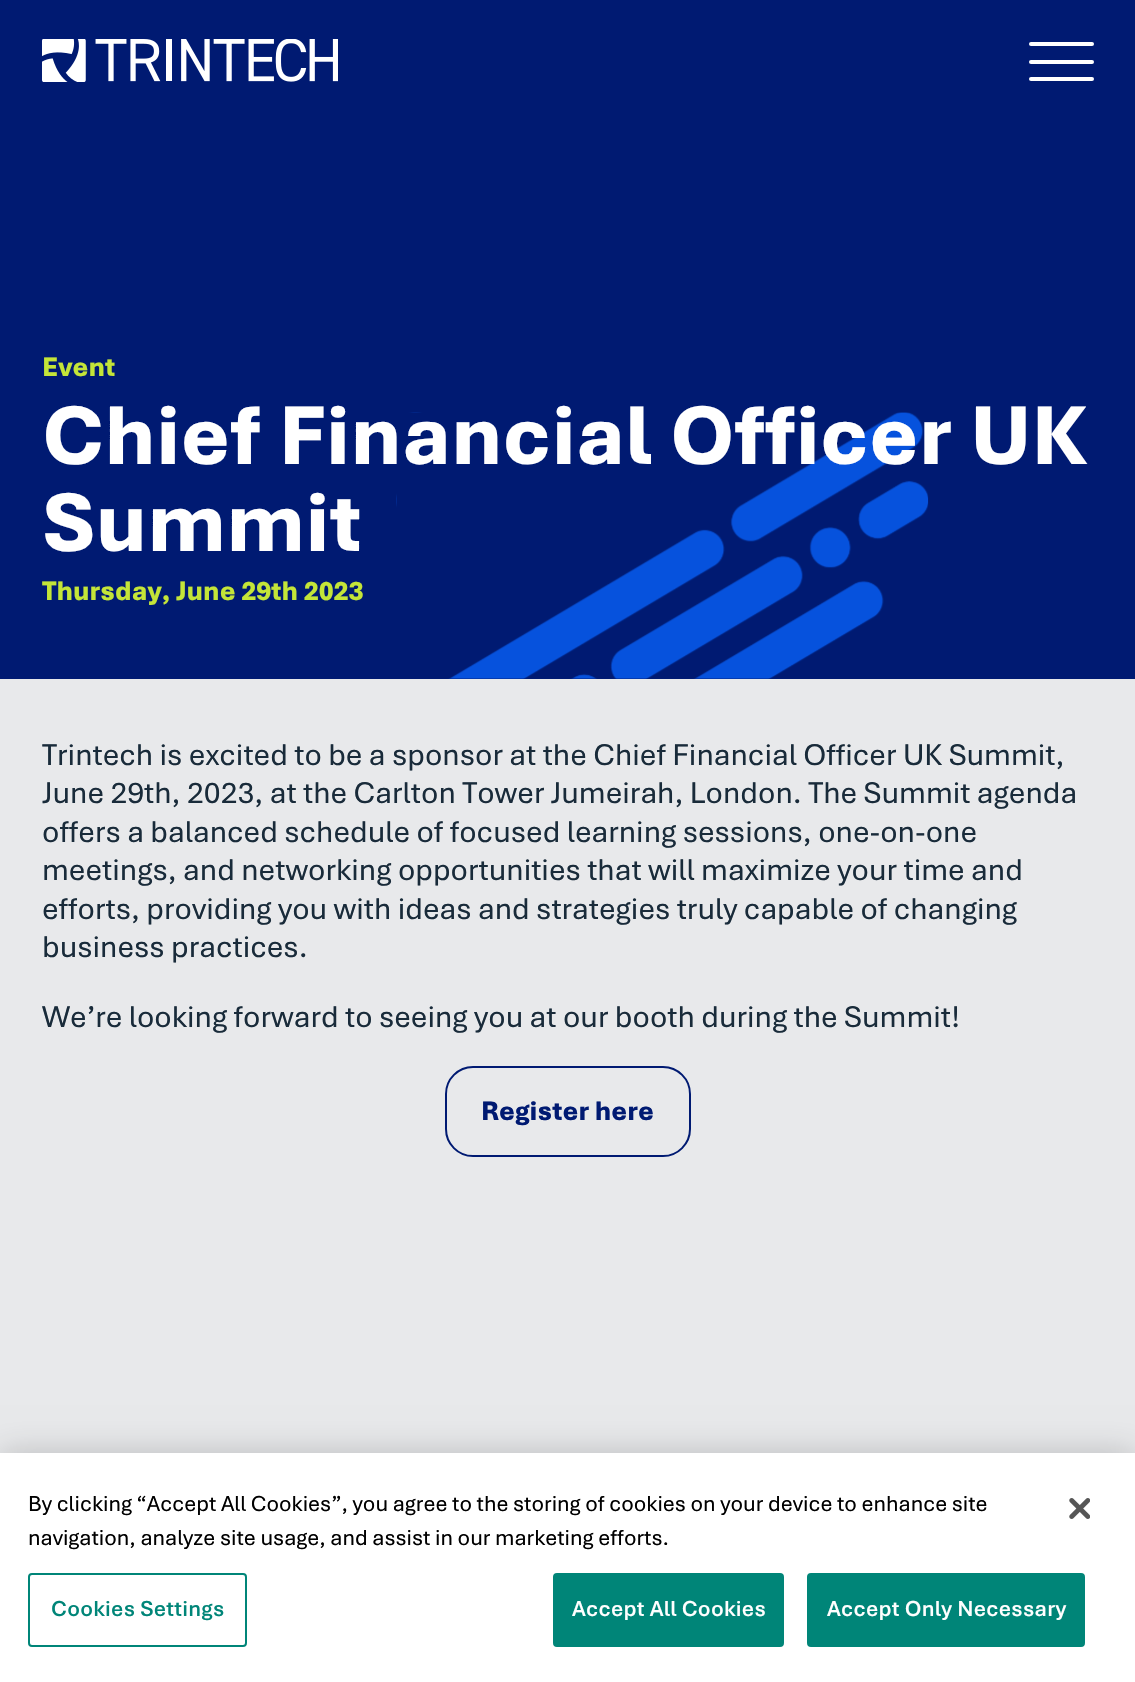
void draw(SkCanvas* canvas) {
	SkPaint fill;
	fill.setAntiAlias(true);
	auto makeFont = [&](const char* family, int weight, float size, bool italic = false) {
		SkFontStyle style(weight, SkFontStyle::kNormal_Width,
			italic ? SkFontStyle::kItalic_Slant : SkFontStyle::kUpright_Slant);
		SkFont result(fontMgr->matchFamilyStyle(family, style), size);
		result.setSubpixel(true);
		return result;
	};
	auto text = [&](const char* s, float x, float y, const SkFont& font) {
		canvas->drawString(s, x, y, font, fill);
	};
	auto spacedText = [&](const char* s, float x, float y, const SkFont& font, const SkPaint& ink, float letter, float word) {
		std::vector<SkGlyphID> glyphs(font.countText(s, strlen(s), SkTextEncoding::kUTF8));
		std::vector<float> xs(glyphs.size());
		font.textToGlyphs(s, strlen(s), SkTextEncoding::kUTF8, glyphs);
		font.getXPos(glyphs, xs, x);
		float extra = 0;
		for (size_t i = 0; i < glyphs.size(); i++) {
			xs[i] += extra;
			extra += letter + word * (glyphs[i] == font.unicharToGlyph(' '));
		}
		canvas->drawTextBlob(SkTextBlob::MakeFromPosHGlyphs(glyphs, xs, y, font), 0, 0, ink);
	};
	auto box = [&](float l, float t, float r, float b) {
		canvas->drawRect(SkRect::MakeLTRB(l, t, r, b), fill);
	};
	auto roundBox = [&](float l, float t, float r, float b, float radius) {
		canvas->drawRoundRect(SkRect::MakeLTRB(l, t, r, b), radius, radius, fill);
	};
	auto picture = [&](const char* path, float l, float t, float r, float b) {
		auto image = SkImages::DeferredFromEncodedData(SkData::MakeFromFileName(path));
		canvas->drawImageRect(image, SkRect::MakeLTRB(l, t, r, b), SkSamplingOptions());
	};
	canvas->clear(0xFFE8E9EB);
	fill.setColor(0xFF001A72);
	box(0, 0, 1135, 679);
	picture("image0.png", 42, 39, 338, 82);
	fill.setColor(0xFFFFFFFF);
	roundBox(1029, 60, 1094, 64, 2);
	roundBox(1029, 42, 1094, 46, 2);
	roundBox(1029, 77, 1094, 81, 2);
	picture("image1.png", 396, 412, 929, 679);
	fill.setStyle(SkPaint::kStroke_Style);
	fill.setStrokeWidth(2);
	fill.setColor(0xFF001A72);
	canvas->drawRoundRect(SkRect::MakeLTRB(446, 1067, 690, 1156), 27, 27, fill);
	fill.setStyle(SkPaint::kFill_Style);
	fill.setColor(0x33000000);
	fill.setMaskFilter(SkMaskFilter::MakeBlur(kNormal_SkBlurStyle, 16));
	canvas->drawRect(SkRect::MakeLTRB(0, 1453, 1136, 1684), fill);
	fill.setMaskFilter(nullptr);
	fill.setColor(0xFFFFFFFF);
	box(0, 1453, 1135, 1682);
	fill.setStyle(SkPaint::kStroke_Style);
	fill.setColor(0xFF008578);
	canvas->drawRoundRect(SkRect::MakeLTRB(29, 1574, 246, 1646), 3, 3, fill);
	fill.setStyle(SkPaint::kFill_Style);
	canvas->drawRoundRect(SkRect::MakeLTRB(554, 1574, 783, 1646), 3, 3, fill);
	fill.setStyle(SkPaint::kStroke_Style);
	canvas->drawRoundRect(SkRect::MakeLTRB(554, 1574, 783, 1646), 3, 3, fill);
	fill.setStyle(SkPaint::kFill_Style);
	canvas->drawRoundRect(SkRect::MakeLTRB(808, 1574, 1084, 1646), 3, 3, fill);
	fill.setStyle(SkPaint::kStroke_Style);
	canvas->drawRoundRect(SkRect::MakeLTRB(808, 1574, 1084, 1646), 3, 3, fill);
	picture("image2.png", 1069, 1498, 1090, 1519);
	auto font1 = makeFont("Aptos", 800, 28);
	fill.setStyle(SkPaint::kFill_Style);
	fill.setColor(0xFFC4E538);
	text("Event", 42, 376, font1);
	auto font2 = makeFont("Aptos", 800, 87.5f);
	fill.setColor(0xFFFFFFFF);
	text("Chief Financial Officer UK", 42, 464, font2);
	text("Summit", 42, 551, font2);
	fill.setColor(0xFFC4E538);
	text("Thursday, June 29th 2023", 42, 600, font1);
	auto font3 = makeFont("Aptos", 400, 31.5f);
	fill.setColor(0xFF192B3A);
	text("Trintech is excited to be a sponsor at the Chief Financial Officer UK Summit,", 42, 765, font3);
	text("June 29th, 2023, at the Carlton Tower Jumeirah, London. The Summit agenda", 42, 803, font3);
	text("offers a balanced schedule of focused learning sessions, one-on-one", 42, 842, font3);
	text("meetings, and networking opportunities that will maximize your time and", 42, 880, font3);
	text("efforts, providing you with ideas and strategies truly capable of changing", 42, 919, font3);
	text("business practices.", 42, 957, font3);
	text("We’re looking forward to seeing you at our booth during the Summit!", 42, 1027, font3);
	fill.setColor(0xFF001A72);
	text("Register here", 481, 1120, font1);
	auto font4 = makeFont("Aptos", 400, 22.75f);
	fill.setColor(0xFF000000);
	text("By clicking “Accept All Cookies”, you agree to the storing of cookies on your device to enhance site", 28, 1511, font4);
	text("navigation, analyze site usage, and assist in our marketing efforts.", 28, 1545, font4);
	auto font5 = makeFont("Aptos", 600, 22.75f);
	fill.setColor(0xFF008578);
	spacedText("Cookies Settings", 51, 1616, font5, fill, 0.25f, 0);
	fill.setColor(0xFFFFFFFF);
	spacedText("Accept All Cookies", 572, 1616, font5, fill, 0.25f, 0);
	spacedText("Accept Only Necessary", 827, 1616, font5, fill, 0.25f, 0);
}
